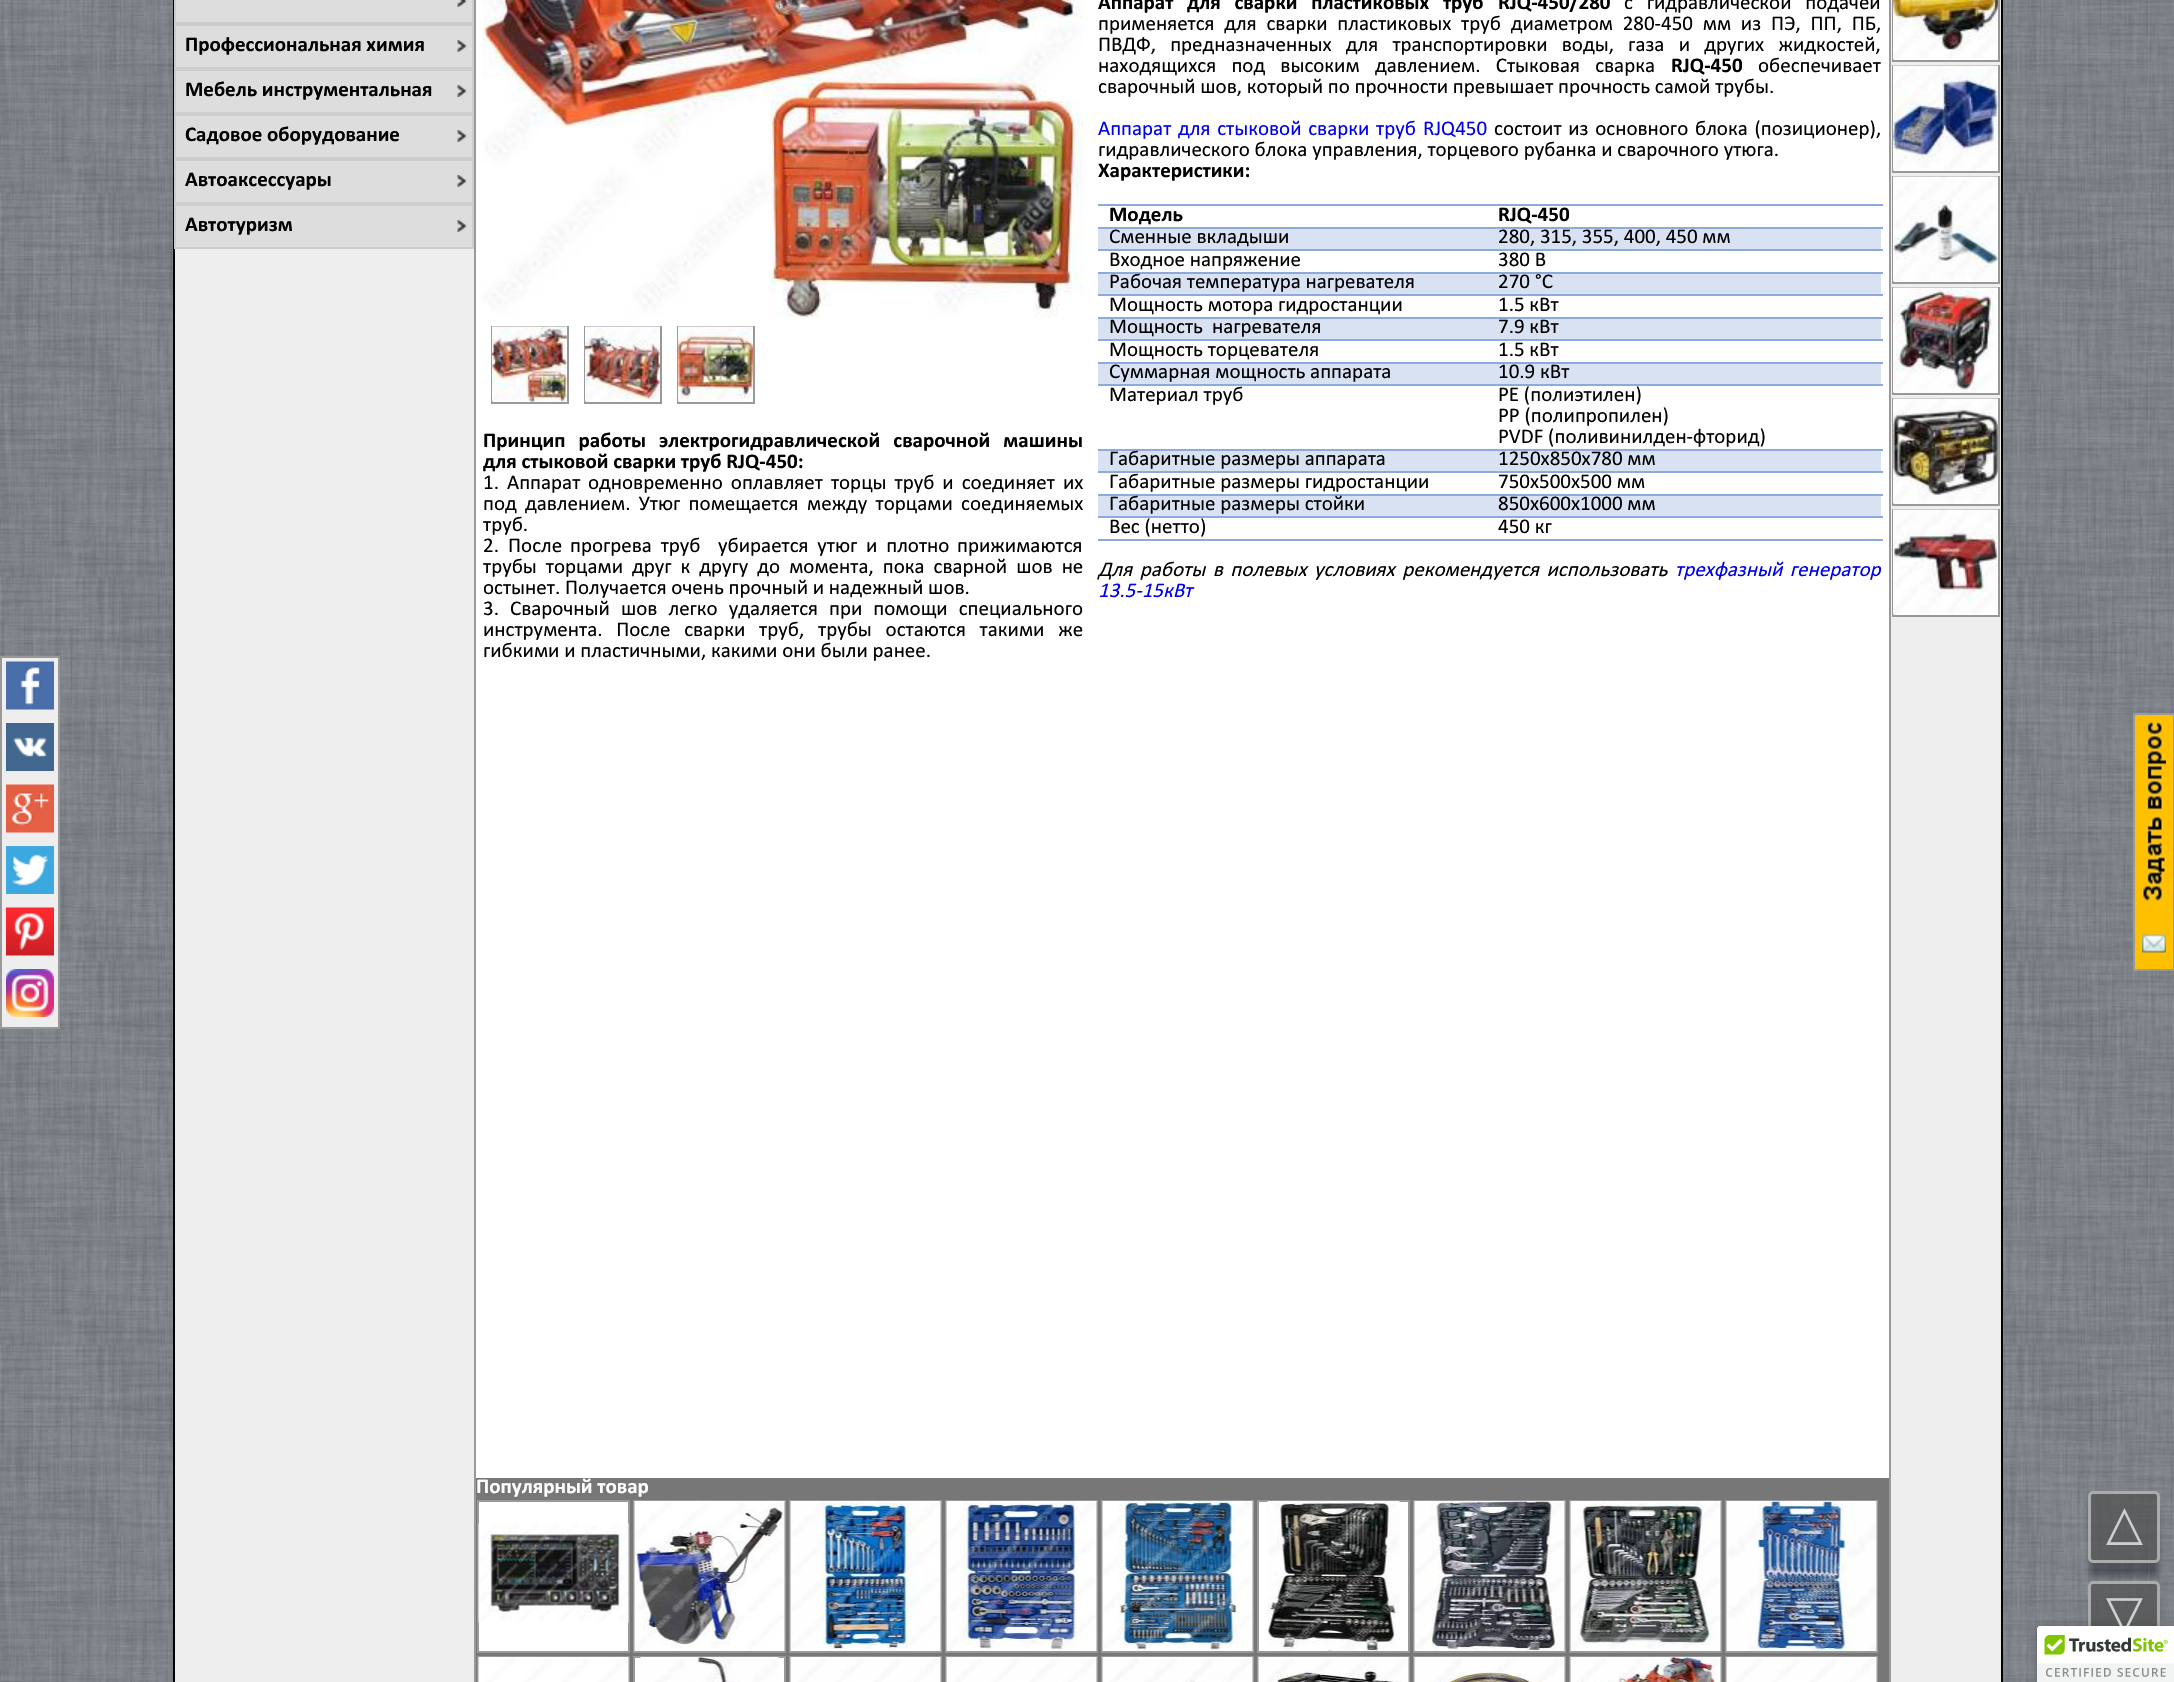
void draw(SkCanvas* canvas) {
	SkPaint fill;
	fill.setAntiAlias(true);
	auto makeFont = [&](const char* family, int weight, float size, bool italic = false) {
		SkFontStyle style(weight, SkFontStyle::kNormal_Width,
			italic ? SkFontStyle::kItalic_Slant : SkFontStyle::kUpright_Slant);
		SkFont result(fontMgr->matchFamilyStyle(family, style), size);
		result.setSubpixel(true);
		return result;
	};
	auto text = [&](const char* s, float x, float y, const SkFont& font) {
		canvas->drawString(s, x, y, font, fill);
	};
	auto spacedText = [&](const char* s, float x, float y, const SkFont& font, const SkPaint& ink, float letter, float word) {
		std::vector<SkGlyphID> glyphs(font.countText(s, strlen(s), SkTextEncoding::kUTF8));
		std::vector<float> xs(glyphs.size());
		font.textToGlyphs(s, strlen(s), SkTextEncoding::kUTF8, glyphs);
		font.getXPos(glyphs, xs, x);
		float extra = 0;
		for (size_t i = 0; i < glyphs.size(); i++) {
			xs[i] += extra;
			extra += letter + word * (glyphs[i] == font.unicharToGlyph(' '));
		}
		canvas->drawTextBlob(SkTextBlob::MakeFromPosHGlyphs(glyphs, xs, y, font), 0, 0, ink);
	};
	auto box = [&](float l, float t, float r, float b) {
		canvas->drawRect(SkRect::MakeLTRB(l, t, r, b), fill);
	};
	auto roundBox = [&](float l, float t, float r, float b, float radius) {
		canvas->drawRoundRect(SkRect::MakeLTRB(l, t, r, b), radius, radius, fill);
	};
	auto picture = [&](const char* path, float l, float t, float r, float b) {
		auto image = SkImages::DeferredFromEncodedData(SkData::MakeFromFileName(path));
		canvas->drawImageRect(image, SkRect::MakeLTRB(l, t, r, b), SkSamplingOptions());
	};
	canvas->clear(0xFFFFFFFF);
	picture("image0.png", 0, 0, 2174, 1682);
	fill.setColor(0xFFEEEEEE);
	canvas->drawRect(SkRect::MakeLTRB(1, 657, 59, 1028), fill);
	fill.setStyle(SkPaint::kStroke_Style);
	fill.setStrokeWidth(2);
	fill.setColor(0xFF999999);
	canvas->drawRect(SkRect::MakeLTRB(1, 657, 59, 1028), fill);
	picture("image1.png", 6, 661, 54, 710);
	picture("image2.png", 6, 723, 54, 771);
	picture("image3.png", 6, 784, 54, 833);
	picture("image4.png", 6, 846, 54, 894);
	picture("image5.png", 6, 907, 54, 956);
	picture("image6.png", 6, 969, 54, 1017);
	fill.setStyle(SkPaint::kFill_Style);
	fill.setColor(0xFF000000);
	box(2001, 0, 2003, 1682);
	box(173, 0, 175, 1682);
	fill.setColor(0xFFEEEEEE);
	box(175, 249, 474, 1682);
	fill.setColor(0xFF999999);
	box(474, 0, 476, 1682);
	fill.setColor(0xFFDDDDDD);
	canvas->drawRect(SkRect::MakeLTRB(175, -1, 473, 23), fill);
	fill.setStyle(SkPaint::kStroke_Style);
	fill.setColor(0xFFCDCDCD);
	canvas->drawRect(SkRect::MakeLTRB(175, -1, 473, 23), fill);
	picture("image7.png", 457, 0, 467, 7);
	fill.setStyle(SkPaint::kFill_Style);
	fill.setColor(0xFFDDDDDD);
	canvas->drawRect(SkRect::MakeLTRB(175, 25, 473, 68), fill);
	fill.setStyle(SkPaint::kStroke_Style);
	fill.setColor(0xFFCDCDCD);
	canvas->drawRect(SkRect::MakeLTRB(175, 25, 473, 68), fill);
	picture("image8.png", 457, 40, 467, 52);
	fill.setStyle(SkPaint::kFill_Style);
	fill.setColor(0xFFDDDDDD);
	canvas->drawRect(SkRect::MakeLTRB(175, 70, 473, 113), fill);
	fill.setStyle(SkPaint::kStroke_Style);
	fill.setColor(0xFFCDCDCD);
	canvas->drawRect(SkRect::MakeLTRB(175, 70, 473, 113), fill);
	picture("image8.png", 457, 85, 467, 97);
	fill.setStyle(SkPaint::kFill_Style);
	fill.setColor(0xFFDDDDDD);
	canvas->drawRect(SkRect::MakeLTRB(175, 115, 473, 158), fill);
	fill.setStyle(SkPaint::kStroke_Style);
	fill.setColor(0xFFCDCDCD);
	canvas->drawRect(SkRect::MakeLTRB(175, 115, 473, 158), fill);
	picture("image8.png", 457, 130, 467, 142);
	fill.setStyle(SkPaint::kFill_Style);
	fill.setColor(0xFFDDDDDD);
	canvas->drawRect(SkRect::MakeLTRB(175, 160, 473, 203), fill);
	fill.setStyle(SkPaint::kStroke_Style);
	fill.setColor(0xFFCDCDCD);
	canvas->drawRect(SkRect::MakeLTRB(175, 160, 473, 203), fill);
	picture("image8.png", 457, 175, 467, 187);
	fill.setStyle(SkPaint::kFill_Style);
	fill.setColor(0xFFDDDDDD);
	canvas->drawRect(SkRect::MakeLTRB(175, 205, 473, 248), fill);
	fill.setStyle(SkPaint::kStroke_Style);
	fill.setColor(0xFFCDCDCD);
	canvas->drawRect(SkRect::MakeLTRB(175, 205, 473, 248), fill);
	picture("image8.png", 457, 220, 467, 232);
	fill.setStyle(SkPaint::kFill_Style);
	fill.setColor(0xFFFFFFFF);
	box(476, 0, 1889, 1478);
	picture("image9.png", 483, 0, 1083, 318);
	fill.setStyle(SkPaint::kStroke_Style);
	fill.setColor(0xFF999999);
	canvas->drawRect(SkRect::MakeLTRB(492, 327, 568, 403), fill);
	picture("image10.png", 492, 326, 567, 402);
	canvas->drawRect(SkRect::MakeLTRB(585, 327, 661, 403), fill);
	picture("image11.png", 585, 326, 660, 402);
	canvas->drawRect(SkRect::MakeLTRB(678, 327, 754, 403), fill);
	picture("image12.png", 678, 326, 753, 402);
	fill.setStyle(SkPaint::kFill_Style);
	fill.setColor(0xFF8EAADB);
	box(1098, 204, 1883, 206);
	box(1098, 227, 1883, 229);
	fill.setColor(0xFFD9E2F3);
	box(1098, 229, 1881, 249);
	fill.setColor(0xFF8EAADB);
	box(1098, 249, 1883, 251);
	box(1098, 272, 1883, 274);
	fill.setColor(0xFFD9E2F3);
	box(1098, 274, 1881, 294);
	fill.setColor(0xFF8EAADB);
	box(1098, 294, 1883, 296);
	box(1098, 317, 1883, 319);
	fill.setColor(0xFFD9E2F3);
	box(1098, 319, 1881, 339);
	fill.setColor(0xFF8EAADB);
	box(1098, 339, 1883, 341);
	box(1098, 362, 1883, 364);
	fill.setColor(0xFFD9E2F3);
	box(1098, 364, 1881, 384);
	fill.setColor(0xFF8EAADB);
	box(1098, 384, 1883, 386);
	box(1098, 449, 1883, 451);
	fill.setColor(0xFFD9E2F3);
	box(1098, 451, 1881, 471);
	fill.setColor(0xFF8EAADB);
	box(1098, 471, 1883, 473);
	box(1098, 494, 1883, 496);
	fill.setColor(0xFFD9E2F3);
	box(1098, 496, 1881, 516);
	fill.setColor(0xFF8EAADB);
	box(1098, 516, 1883, 518);
	box(1098, 539, 1883, 541);
	fill.setColor(0xFF777777);
	box(476, 1478, 1889, 1682);
	fill.setColor(0xFFFFFFFF);
	canvas->drawRect(SkRect::MakeLTRB(478, 1501, 629, 1652), fill);
	fill.setStyle(SkPaint::kStroke_Style);
	fill.setColor(0xFF999999);
	canvas->drawRect(SkRect::MakeLTRB(478, 1501, 629, 1652), fill);
	picture("image13.png", 478, 1523, 629, 1623);
	canvas->drawRect(SkRect::MakeLTRB(634, 1501, 785, 1652), fill);
	picture("image14.png", 634, 1501, 785, 1651);
	canvas->drawRect(SkRect::MakeLTRB(790, 1501, 941, 1652), fill);
	picture("image15.png", 790, 1501, 941, 1651);
	canvas->drawRect(SkRect::MakeLTRB(946, 1501, 1097, 1652), fill);
	picture("image16.png", 946, 1501, 1097, 1651);
	canvas->drawRect(SkRect::MakeLTRB(1102, 1501, 1253, 1652), fill);
	picture("image17.png", 1102, 1501, 1253, 1651);
	fill.setStyle(SkPaint::kFill_Style);
	fill.setColor(0xFFFFFFFF);
	canvas->drawRect(SkRect::MakeLTRB(1258, 1501, 1409, 1652), fill);
	fill.setStyle(SkPaint::kStroke_Style);
	fill.setColor(0xFF999999);
	canvas->drawRect(SkRect::MakeLTRB(1258, 1501, 1409, 1652), fill);
	picture("image18.png", 1267, 1501, 1400, 1651);
	canvas->drawRect(SkRect::MakeLTRB(1414, 1501, 1565, 1652), fill);
	picture("image19.png", 1414, 1501, 1565, 1651);
	canvas->drawRect(SkRect::MakeLTRB(1570, 1501, 1721, 1652), fill);
	picture("image20.png", 1570, 1501, 1721, 1651);
	canvas->drawRect(SkRect::MakeLTRB(1726, 1501, 1877, 1652), fill);
	picture("image21.png", 1726, 1501, 1877, 1651);
	canvas->drawRect(SkRect::MakeLTRB(478, 1657, 629, 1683), fill);
	picture("image22.png", 478, 1657, 629, 1682);
	fill.setStyle(SkPaint::kFill_Style);
	fill.setColor(0xFFFFFFFF);
	canvas->drawRect(SkRect::MakeLTRB(634, 1657, 785, 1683), fill);
	fill.setStyle(SkPaint::kStroke_Style);
	fill.setColor(0xFF999999);
	canvas->drawRect(SkRect::MakeLTRB(634, 1657, 785, 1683), fill);
	picture("image23.png", 640, 1657, 779, 1682);
	canvas->drawRect(SkRect::MakeLTRB(790, 1657, 941, 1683), fill);
	picture("image24.png", 790, 1657, 941, 1682);
	canvas->drawRect(SkRect::MakeLTRB(946, 1657, 1097, 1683), fill);
	picture("image24.png", 946, 1657, 1097, 1682);
	canvas->drawRect(SkRect::MakeLTRB(1102, 1657, 1253, 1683), fill);
	picture("image25.png", 1102, 1657, 1253, 1682);
	canvas->drawRect(SkRect::MakeLTRB(1258, 1657, 1409, 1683), fill);
	picture("image26.png", 1258, 1657, 1409, 1682);
	canvas->drawRect(SkRect::MakeLTRB(1414, 1657, 1565, 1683), fill);
	picture("image27.png", 1414, 1657, 1565, 1682);
	canvas->drawRect(SkRect::MakeLTRB(1570, 1657, 1721, 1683), fill);
	picture("image28.png", 1570, 1657, 1721, 1682);
	canvas->drawRect(SkRect::MakeLTRB(1726, 1657, 1877, 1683), fill);
	picture("image24.png", 1726, 1657, 1877, 1682);
	fill.setStyle(SkPaint::kFill_Style);
	fill.setColor(0xFFEEEEEE);
	box(1891, 0, 2001, 1682);
	fill.setColor(0xFF999999);
	box(1889, 0, 1891, 1682);
	fill.setColor(0xFFFFFFFF);
	box(1894, 59, 1998, 60);
	fill.setStyle(SkPaint::kStroke_Style);
	fill.setColor(0xFF999999);
	canvas->drawRect(SkRect::MakeLTRB(1893, -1, 1999, 61), fill);
	picture("image29.png", 1893, 0, 1998, 60);
	fill.setStyle(SkPaint::kFill_Style);
	fill.setColor(0xFFFFFFFF);
	box(1894, 170, 1998, 171);
	fill.setStyle(SkPaint::kStroke_Style);
	fill.setColor(0xFF999999);
	canvas->drawRect(SkRect::MakeLTRB(1893, 66, 1999, 172), fill);
	picture("image30.png", 1893, 65, 1998, 171);
	fill.setStyle(SkPaint::kFill_Style);
	fill.setColor(0xFFFFFFFF);
	box(1894, 281, 1998, 282);
	fill.setStyle(SkPaint::kStroke_Style);
	fill.setColor(0xFF999999);
	canvas->drawRect(SkRect::MakeLTRB(1893, 177, 1999, 283), fill);
	picture("image31.png", 1893, 176, 1998, 282);
	fill.setStyle(SkPaint::kFill_Style);
	fill.setColor(0xFFFFFFFF);
	box(1894, 392, 1998, 393);
	fill.setStyle(SkPaint::kStroke_Style);
	fill.setColor(0xFF999999);
	canvas->drawRect(SkRect::MakeLTRB(1893, 288, 1999, 394), fill);
	picture("image32.png", 1893, 287, 1998, 393);
	fill.setStyle(SkPaint::kFill_Style);
	fill.setColor(0xFFFFFFFF);
	box(1894, 503, 1998, 504);
	fill.setStyle(SkPaint::kStroke_Style);
	fill.setColor(0xFF999999);
	canvas->drawRect(SkRect::MakeLTRB(1893, 399, 1999, 505), fill);
	picture("image33.png", 1893, 398, 1998, 504);
	fill.setStyle(SkPaint::kFill_Style);
	fill.setColor(0xFFFFFFFF);
	box(1894, 614, 1998, 615);
	fill.setStyle(SkPaint::kStroke_Style);
	fill.setColor(0xFF999999);
	canvas->drawRect(SkRect::MakeLTRB(1893, 510, 1999, 616), fill);
	picture("image34.png", 1893, 509, 1998, 615);
	fill.setStyle(SkPaint::kFill_Style);
	fill.setColor(0xFFFFC000);
	canvas->drawRect(SkRect::MakeLTRB(2134, 714, 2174, 970), fill);
	fill.setStyle(SkPaint::kStroke_Style);
	fill.setColor(0xFF999999);
	canvas->drawRect(SkRect::MakeLTRB(2134, 714, 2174, 970), fill);
	picture("image35.png", 2142, 721, 2166, 902);
	picture("image36.png", 2142, 934, 2166, 953);
	canvas->save();
	canvas->clipPath(SkPathBuilder(SkPathFillType::kEvenOdd).moveTo(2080, 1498).lineTo(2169, 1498).lineTo(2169, 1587).lineTo(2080, 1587).close().moveTo(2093, 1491).lineTo(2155, 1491).cubicTo(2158, 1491, 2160, 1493, 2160, 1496).lineTo(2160, 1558).cubicTo(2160, 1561, 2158, 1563, 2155, 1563).lineTo(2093, 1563).cubicTo(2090, 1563, 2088, 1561, 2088, 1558).lineTo(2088, 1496).cubicTo(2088, 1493, 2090, 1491, 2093, 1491).close().detach(), true);
	fill.setStyle(SkPaint::kFill_Style);
	fill.setColor(0x59000006);
	fill.setMaskFilter(SkMaskFilter::MakeBlur(kNormal_SkBlurStyle, 3));
	canvas->drawRoundRect(SkRect::MakeLTRB(2090, 1508, 2159, 1577), 2, 2, fill);
	fill.setMaskFilter(nullptr);
	canvas->restore();
	fill.setColor(0xB34F4F4F);
	roundBox(2088, 1491, 2160, 1563, 5);
	fill.setStyle(SkPaint::kStroke_Style);
	fill.setStrokeWidth(3);
	fill.setColor(0xB3CCCCCC);
	canvas->drawRoundRect(SkRect::MakeLTRB(2089.5f, 1492.5f, 2158.5f, 1561.5f), 3.5f, 3.5f, fill);
	canvas->save();
	canvas->clipPath(SkPathBuilder(SkPathFillType::kEvenOdd).moveTo(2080, 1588).lineTo(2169, 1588).lineTo(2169, 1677).lineTo(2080, 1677).close().moveTo(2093, 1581).lineTo(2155, 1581).cubicTo(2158, 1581, 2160, 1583, 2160, 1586).lineTo(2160, 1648).cubicTo(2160, 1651, 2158, 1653, 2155, 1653).lineTo(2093, 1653).cubicTo(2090, 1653, 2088, 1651, 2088, 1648).lineTo(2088, 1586).cubicTo(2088, 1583, 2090, 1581, 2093, 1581).close().detach(), true);
	fill.setStyle(SkPaint::kFill_Style);
	fill.setColor(0x59000006);
	fill.setMaskFilter(SkMaskFilter::MakeBlur(kNormal_SkBlurStyle, 3));
	canvas->drawRoundRect(SkRect::MakeLTRB(2090, 1598, 2159, 1667), 2, 2, fill);
	fill.setMaskFilter(nullptr);
	canvas->restore();
	fill.setColor(0xB34F4F4F);
	roundBox(2088, 1581, 2160, 1653, 5);
	fill.setStyle(SkPaint::kStroke_Style);
	fill.setColor(0xB3CCCCCC);
	canvas->drawRoundRect(SkRect::MakeLTRB(2089.5f, 1582.5f, 2158.5f, 1651.5f), 3.5f, 3.5f, fill);
	fill.setStyle(SkPaint::kFill_Style);
	fill.setColor(0x33000000);
	fill.setMaskFilter(SkMaskFilter::MakeBlur(kNormal_SkBlurStyle, 4));
	canvas->drawRoundRect(SkRect::MakeLTRB(2037, 1626, 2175, 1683), 3, 3, fill);
	fill.setMaskFilter(nullptr);
	auto font1 = makeFont("Calibri", 700, 21);
	fill.setColor(0xFF000000);
	text("Профессиональная химия", 185, 51, font1);
	text("Мебель инструментальная", 185, 96, font1);
	text("Cадовое оборудование", 185, 141, font1);
	text("Автоаксессуары", 185, 186, font1);
	text("Автотуризм", 185, 231, font1);
	spacedText("Принцип работы электрогидравлической сварочной машины", 483, 447, font1, fill, 0, 8.5f);
	text("для стыковой сварки труб RJQ-450:", 483, 468, font1);
	auto font2 = makeFont("Calibri", 400, 21);
	text("1.", 483, 489, font2);
	text("Аппарат", 507, 489, font2);
	spacedText("одновременно оплавляет торцы труб и соединяет их", 588, 489, font2, fill, 0, 3.25f);
	spacedText("под давлением. Утюг помещается", 483, 510, font2, fill, 0, 3.5f);
	spacedText("между торцами соединяемых", 807, 510, font2, fill, 0, 3.5f);
	text("труб.", 483, 531, font2);
	text("2.", 483, 552, font2);
	text("После", 508, 552, font2);
	spacedText("прогрева труб  убирается утюг и плотно", 570, 552, font2, fill, 0, 4);
	text("прижимаются", 957, 552, font2);
	spacedText("трубы торцами друг к другу до момента, пока сварной шов не", 483, 573, font2, fill, 0, 4.25f);
	text("остынет. Получается очень прочный и надежный шов.", 483, 594, font2);
	text("3.", 483, 615, font2);
	text("Сварочный", 510, 615, font2);
	spacedText("шов легко удаляется при помощи специального", 621, 615, font2, fill, 0, 6.25f);
	spacedText("инструмента. После сварки труб,", 483, 636, font2, fill, 0, 9);
	spacedText("трубы остаются такими же", 818, 636, font2, fill, 0, 9);
	text("гибкими и пластичными, какими они были ранее.", 483, 657, font2);
	spacedText("Аппарат для сварки пластиковых труб", 1098, 9, font1, fill, 0, 9);
	text("RJQ-450/280", 1498, 9, font1);
	spacedText("с гидравлической подачей", 1624, 9, font2, fill, 0, 9);
	spacedText("применяется для сварки пластиковых труб диаметром 280-450 мм из", 1098, 30, font2, fill, 0, 5);
	spacedText("ПЭ, ПП, ПБ,", 1771, 30, font2, fill, 0, 5);
	spacedText("ПВДФ, предназначенных для транспортировки воды, газа и других жидкостей,", 1098, 51, font2, fill, 0, 9.5f);
	spacedText("находящихся под высоким давлением. Стыковая сварка", 1098, 72, font2, fill, 0, 10.5f);
	text("RJQ-450", 1671, 72, font1);
	text("обеспечивает", 1758, 72, font2);
	text("сварочный шов, который по прочности превышает прочность самой трубы.", 1098, 93, font2);
	fill.setColor(0xFF0000EE);
	spacedText("Аппарат для стыковой сварки труб", 1098, 135, font2, fill, 0, 2);
	text("RJQ450", 1423, 135, font2);
	fill.setColor(0xFF000000);
	spacedText("состоит из основного блока (позиционер),", 1494, 135, font2, fill, 0, 2);
	text("гидравлического блока управления, торцевого рубанка и сварочного утюга.", 1098, 156, font2);
	text("Характеристики:", 1098, 177, font1);
	text("Модель", 1109, 221, font1);
	text("RJQ-450", 1498, 221, font1);
	text("Сменные вкладыши", 1109, 243, font2);
	text("280, 315, 355, 400, 450 мм", 1498, 243, font2);
	text("Входное напряжение", 1109, 266, font2);
	text("380 В", 1498, 266, font2);
	text("Рабочая температура нагревателя", 1109, 288, font2);
	text("270 °С", 1498, 288, font2);
	text("Мощность мотора гидростанции", 1109, 311, font2);
	text("1.5 кВт", 1498, 311, font2);
	text("Мощность", 1109, 333, font2);
	text("нагревателя", 1212, 333, font2);
	text("7.9 кВт", 1498, 333, font2);
	text("Мощность торцевателя", 1109, 356, font2);
	text("1.5 кВт", 1498, 356, font2);
	text("Суммарная мощность аппарата", 1109, 378, font2);
	text("10.9 кВт", 1498, 378, font2);
	text("Материал труб", 1109, 401, font2);
	text("PE (полиэтилен)", 1498, 401, font2);
	text("PP (полипропилен)", 1498, 422, font2);
	text("PVDF (поливинилден-фторид)", 1498, 443, font2);
	text("Габаритные размеры аппарата", 1109, 465, font2);
	text("1250х850х780 мм", 1498, 465, font2);
	text("Габаритные размеры гидростанции", 1109, 488, font2);
	text("750х500х500 мм", 1498, 488, font2);
	text("Габаритные размеры стойки", 1109, 510, font2);
	text("850х600х1000 мм", 1498, 510, font2);
	text("Вес (нетто)", 1109, 533, font2);
	text("450 кг", 1498, 533, font2);
	auto font3 = makeFont("Calibri", 400, 21, true);
	spacedText("Для работы в полевых условиях рекомендуется использовать", 1098, 576, font3, fill, 0, 2.75f);
	fill.setColor(0xFF0000EE);
	spacedText("трехфазный генератор", 1675, 576, font3, fill, 0, 2.75f);
	text("13.5-15кВт", 1098, 597, font3);
	fill.setColor(0xFFFFFFFF);
	text("Популярный товар", 476, 1493, font1);
	auto font4 = makeFont("DejaVu Sans", 400, 48);
	fill.setColor(0xFFCECFCF);
	text("△", 2106, 1539, font4);
	text("▽", 2106, 1629, font4);
	fill.setColor(0xFFFFFFFF);
	canvas->drawPath(SkPathBuilder().moveTo(2040, 1626).lineTo(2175, 1626).lineTo(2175, 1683).lineTo(2037, 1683).lineTo(2037, 1629).cubicTo(2037, 1627.5f, 2038.5f, 1626, 2040, 1626).close().detach(), fill);
	picture("image37.png", 2037, 1626, 2174, 1682);
}
